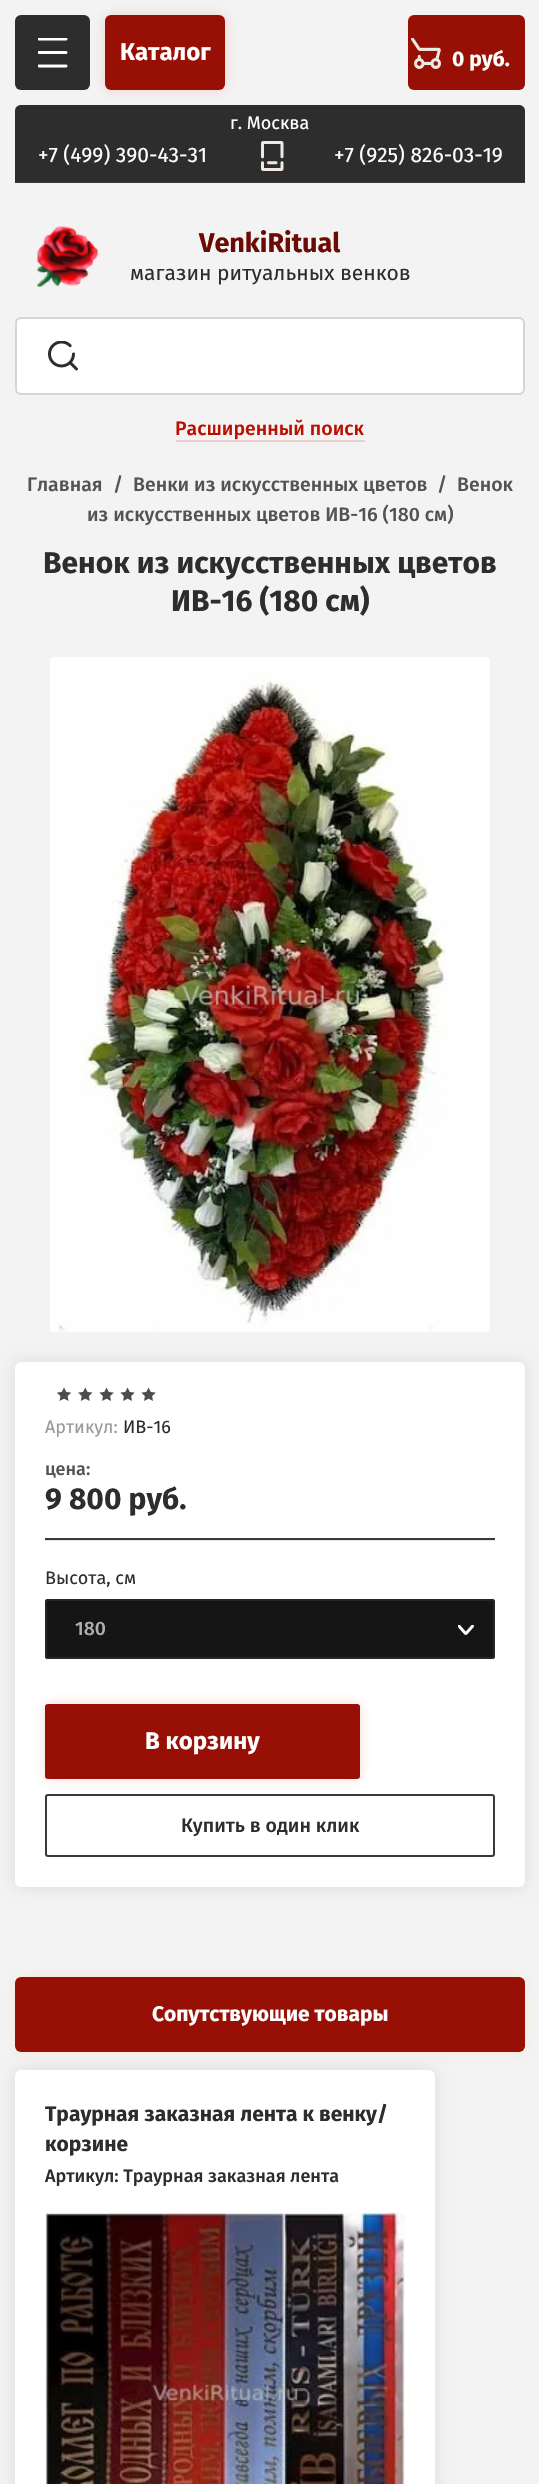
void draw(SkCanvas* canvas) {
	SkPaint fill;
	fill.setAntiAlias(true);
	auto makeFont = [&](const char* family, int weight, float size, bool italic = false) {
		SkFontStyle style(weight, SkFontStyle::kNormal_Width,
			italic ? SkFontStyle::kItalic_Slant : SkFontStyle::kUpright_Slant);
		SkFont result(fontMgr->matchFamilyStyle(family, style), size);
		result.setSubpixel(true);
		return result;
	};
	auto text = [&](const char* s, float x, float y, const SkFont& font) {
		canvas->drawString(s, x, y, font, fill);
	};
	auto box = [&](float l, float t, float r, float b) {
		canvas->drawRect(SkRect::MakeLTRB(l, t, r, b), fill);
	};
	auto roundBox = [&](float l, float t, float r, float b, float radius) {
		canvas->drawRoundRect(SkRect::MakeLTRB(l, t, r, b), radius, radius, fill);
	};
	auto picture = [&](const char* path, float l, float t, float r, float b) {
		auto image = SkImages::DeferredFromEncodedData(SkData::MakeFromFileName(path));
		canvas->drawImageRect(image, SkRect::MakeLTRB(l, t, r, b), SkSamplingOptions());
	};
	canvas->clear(0xFFF3F3F3);
	fill.setColor(0xFF2E2D2D);
	roundBox(15, 15, 90, 90, 6);
	picture("image0.png", 38, 38, 68, 68);
	canvas->drawPath(SkPathBuilder().moveTo(21, 105).lineTo(519, 105).cubicTo(522.5f, 105, 525, 107.5f, 525, 111).lineTo(525, 183).lineTo(15, 183).lineTo(15, 111).cubicTo(15, 107.5f, 17.5f, 105, 21, 105).close().detach(), fill);
	fill.setColor(0x33D8382C);
	fill.setMaskFilter(SkMaskFilter::MakeBlur(kNormal_SkBlurStyle, 6));
	canvas->drawRoundRect(SkRect::MakeLTRB(105, 15, 225, 90), 6, 6, fill);
	fill.setMaskFilter(nullptr);
	fill.setColor(0xFF981005);
	roundBox(105, 15, 225, 90, 6);
	roundBox(408, 15, 525, 90, 6);
	picture("image1.png", 411, 38, 441, 69);
	fill.setColor(0xFF383838);
	box(15, 182, 525, 183);
	picture("image2.png", 261, 141, 284, 171);
	fill.setColor(0xFF3A2625);
	box(261, 171, 284, 173);
	picture("image3.png", 37, 226, 98, 287);
	fill.setColor(0xFFFFFFFF);
	canvas->drawRoundRect(SkRect::MakeLTRB(16, 318, 524, 394), 5, 5, fill);
	fill.setStyle(SkPaint::kStroke_Style);
	fill.setStrokeWidth(2);
	fill.setColor(0xFFD6D5D5);
	canvas->drawRoundRect(SkRect::MakeLTRB(16, 318, 524, 394), 5, 5, fill);
	picture("image4.png", 48, 341, 78, 371);
	fill.setStyle(SkPaint::kFill_Style);
	fill.setColor(0xFFEECECB);
	box(176, 440, 365, 442);
	picture("image5.png", 50, 657, 490, 1332);
	fill.setColor(0x1A000000);
	fill.setMaskFilter(SkMaskFilter::MakeBlur(kNormal_SkBlurStyle, 7.5f));
	canvas->drawRoundRect(SkRect::MakeLTRB(15, 1362, 525, 1887), 6, 6, fill);
	fill.setMaskFilter(nullptr);
	fill.setColor(0xFFFFFFFF);
	roundBox(15, 1362, 525, 1887, 6);
	picture("image6.png", 56, 1387, 156, 1401);
	fill.setColor(0xFFE6E6E6);
	box(45, 1540, 495, 1541);
	fill.setColor(0xFF383838);
	box(45, 1538, 495, 1540);
	fill.setColor(0xFF151515);
	roundBox(45, 1599, 495, 1659, 3);
	picture("image7.png", 458, 1625, 474, 1635);
	fill.setStyle(SkPaint::kStroke_Style);
	fill.setColor(0xFF262626);
	canvas->drawRoundRect(SkRect::MakeLTRB(46, 1600, 494, 1658), 2, 2, fill);
	fill.setColor(0xFF383838);
	canvas->drawRoundRect(SkRect::MakeLTRB(46, 1795, 494, 1856), 2, 2, fill);
	fill.setStyle(SkPaint::kFill_Style);
	fill.setColor(0x33D8382C);
	fill.setMaskFilter(SkMaskFilter::MakeBlur(kNormal_SkBlurStyle, 6));
	canvas->drawRoundRect(SkRect::MakeLTRB(45, 1704, 360, 1779), 3, 3, fill);
	fill.setMaskFilter(nullptr);
	fill.setColor(0xFF981005);
	roundBox(45, 1704, 360, 1779, 3);
	fill.setColor(0x33FFB65A);
	fill.setMaskFilter(SkMaskFilter::MakeBlur(kNormal_SkBlurStyle, 6));
	canvas->drawRoundRect(SkRect::MakeLTRB(15, 1977, 525, 2052), 6, 6, fill);
	fill.setMaskFilter(nullptr);
	fill.setColor(0xFF981005);
	roundBox(15, 1977, 525, 2052, 6);
	fill.setColor(0x1A000000);
	fill.setMaskFilter(SkMaskFilter::MakeBlur(kNormal_SkBlurStyle, 7.5f));
	canvas->drawRoundRect(SkRect::MakeLTRB(15, 2070, 435, 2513), 6, 6, fill);
	fill.setMaskFilter(nullptr);
	fill.setColor(0xFFFFFFFF);
	roundBox(15, 2070, 435, 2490, 6);
	picture("image8.png", 45, 2212, 405, 2484);
	auto font1 = makeFont("Fira Sans", 700, 24);
	text("Каталог", 120, 60, font1);
	auto font2 = makeFont("Fira Sans", 700, 21);
	text("0 руб.", 452, 66, font2);
	auto font3 = makeFont("Fira Sans", 400, 18);
	text("г. Москва", 230, 129, font3);
	auto font4 = makeFont("Fira Sans", 400, 21);
	text("+7 (499) 390-43-31", 38, 162, font4);
	text("+7 (925) 826-03-19", 334, 162, font4);
	auto font5 = makeFont("Fira Sans", 700, 27);
	fill.setColor(0xFF6B0B03);
	text("VenkiRitual", 199, 252, font5);
	fill.setColor(0xFF2E2D2D);
	text("магазин ритуальных венков", 130, 280, font4);
	auto font6 = makeFont("Fira Sans", 500, 19.5f);
	fill.setColor(0xFFBB0F00);
	text("Расширенный поиск", 175, 435, font6);
	fill.setColor(0xFF535353);
	text("Главная", 27, 491, font6);
	text("/", 113, 491, font6);
	text("Венки из искусственных цветов", 133, 491, font6);
	text("/", 437, 491, font6);
	text("Венок", 457, 491, font6);
	text("из искусственных цветов ИВ-16 (180 см)", 87, 521, font6);
	auto font7 = makeFont("Fira Sans", 700, 30);
	fill.setColor(0xFF2E2D2D);
	text("Венок из искусственных цветов", 43, 573, font7);
	text("ИВ-16 (180 см)", 171, 611, font7);
	fill.setColor(0xFF999999);
	text("Артикул:", 45, 1433, font3);
	fill.setColor(0xFF2E2D2D);
	text("ИВ-16", 123, 1433, font3);
	auto font8 = makeFont("Fira Sans", 500, 18);
	fill.setColor(0xFF535353);
	text("цена:", 45, 1475, font8);
	fill.setColor(0xFF2E2D2D);
	text("9 800 руб.", 45, 1509, font7);
	text("Высота, см", 45, 1584, font3);
	fill.setColor(0xFFAEAEAE);
	text("180", 75, 1635, font6);
	fill.setColor(0xFFFFFFFF);
	text("В корзину", 145, 1749, font1);
	fill.setColor(0xFF2E2D2D);
	text("Купить в один клик", 181, 1832, font6);
	fill.setColor(0xFFFFFFFF);
	text("Сопутствующие товары", 152, 2021, font2);
	fill.setColor(0xFF2E2D2D);
	text("Траурная заказная лента к венку/", 45, 2121, font2);
	text("корзине", 45, 2151, font2);
	text("Артикул: Траурная заказная лента", 45, 2182, font8);
}
